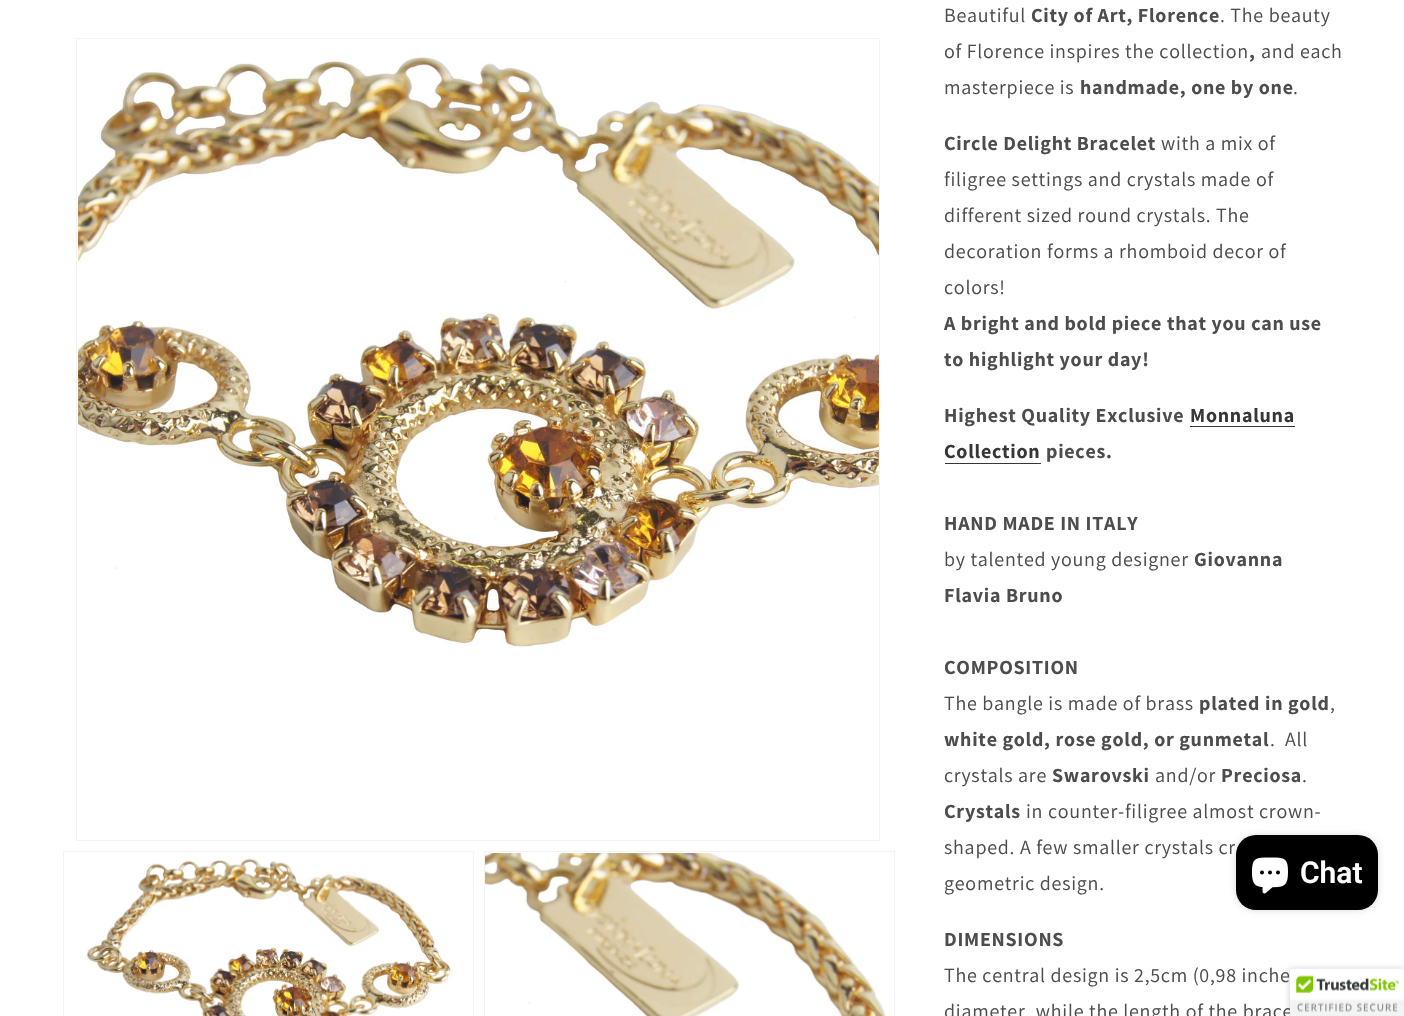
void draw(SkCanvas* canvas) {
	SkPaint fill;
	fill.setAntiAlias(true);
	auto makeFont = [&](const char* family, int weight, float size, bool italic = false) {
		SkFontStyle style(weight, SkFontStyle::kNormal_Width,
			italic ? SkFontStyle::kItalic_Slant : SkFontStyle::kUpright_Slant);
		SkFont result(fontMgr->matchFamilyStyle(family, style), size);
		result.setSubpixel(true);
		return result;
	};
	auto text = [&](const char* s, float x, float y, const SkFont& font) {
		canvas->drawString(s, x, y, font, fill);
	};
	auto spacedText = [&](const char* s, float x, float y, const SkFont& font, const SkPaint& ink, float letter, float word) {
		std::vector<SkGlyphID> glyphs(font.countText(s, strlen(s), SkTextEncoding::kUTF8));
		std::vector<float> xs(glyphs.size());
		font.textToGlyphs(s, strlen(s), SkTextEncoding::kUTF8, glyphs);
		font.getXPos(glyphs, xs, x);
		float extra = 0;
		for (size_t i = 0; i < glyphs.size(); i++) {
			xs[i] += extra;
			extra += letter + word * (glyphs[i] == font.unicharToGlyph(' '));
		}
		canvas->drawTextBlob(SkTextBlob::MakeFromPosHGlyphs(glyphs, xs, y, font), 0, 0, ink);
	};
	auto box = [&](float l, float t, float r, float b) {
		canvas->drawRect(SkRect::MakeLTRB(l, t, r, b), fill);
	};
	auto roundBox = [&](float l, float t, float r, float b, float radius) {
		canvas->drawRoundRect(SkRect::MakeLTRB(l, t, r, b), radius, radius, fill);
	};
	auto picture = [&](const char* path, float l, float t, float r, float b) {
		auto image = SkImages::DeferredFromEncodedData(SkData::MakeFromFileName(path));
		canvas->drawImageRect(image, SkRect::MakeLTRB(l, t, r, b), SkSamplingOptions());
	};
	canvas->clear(0xFFFFFFFF);
	fill.setStyle(SkPaint::kStroke_Style);
	fill.setStrokeWidth(1);
	fill.setColor(0xFFF3F3F3);
	canvas->drawRect(SkRect::MakeLTRB(76.5f, 38.5f, 879.5f, 840.5f), fill);
	picture("image0.png", 78, 56, 879, 648);
	canvas->drawRect(SkRect::MakeLTRB(63.5f, 851.5f, 473.5f, 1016.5f), fill);
	picture("image1.png", 86, 858, 453, 1016);
	canvas->drawRect(SkRect::MakeLTRB(484.5f, 851.5f, 894.5f, 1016.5f), fill);
	picture("image2.png", 485, 853, 886, 1016);
	fill.setStyle(SkPaint::kFill_Style);
	fill.setColor(0xFF363636);
	box(1190, 426, 1295, 427);
	box(945, 463, 1041, 464);
	fill.setColor(0x26000000);
	fill.setMaskFilter(SkMaskFilter::MakeBlur(kNormal_SkBlurStyle, 3));
	canvas->drawRoundRect(SkRect::MakeLTRB(1236, 835, 1378, 910), 20, 20, fill);
	fill.setMaskFilter(nullptr);
	fill.setColor(0xFF000000);
	roundBox(1236, 835, 1378, 910, 20);
	picture("image3.png", 1252, 857, 1288, 894);
	fill.setColor(0x33000000);
	fill.setMaskFilter(SkMaskFilter::MakeBlur(kNormal_SkBlurStyle, 3));
	canvas->drawRoundRect(SkRect::MakeLTRB(1290, 969, 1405, 1016), 2.5f, 2.5f, fill);
	fill.setMaskFilter(nullptr);
	auto font1 = makeFont("Assistant", 400, 20);
	fill.setColor(0xFF4D4D4D);
	spacedText("Beautiful", 944, 22, font1, fill, 0.75f, 0);
	auto font2 = makeFont("Assistant", 700, 20);
	spacedText("City of Art, Florence", 1031, 22, font2, fill, 0.75f, 0);
	spacedText(". The beauty", 1220, 22, font1, fill, 0.75f, 0);
	spacedText("of Florence inspires the collection", 944, 58, font1, fill, 0.75f, 0);
	spacedText(",", 1249, 58, font2, fill, 0.75f, 0);
	spacedText("and each", 1261, 58, font1, fill, 0.75f, 0);
	spacedText("masterpiece is", 944, 94, font1, fill, 0.75f, 0);
	spacedText("handmade, one by one", 1080, 94, font2, fill, 0.75f, 0);
	spacedText(".", 1293, 94, font1, fill, 0.75f, 0);
	spacedText("Circle Delight Bracelet", 944, 150, font2, fill, 0.75f, 0);
	spacedText("with a mix of", 1161, 150, font1, fill, 0.75f, 0);
	spacedText("filigree settings and crystals made of", 944, 186, font1, fill, 0.75f, 0);
	spacedText("different sized round crystals. The", 944, 222, font1, fill, 0.75f, 0);
	spacedText("decoration forms a rhomboid decor of", 944, 258, font1, fill, 0.75f, 0);
	spacedText("colors!", 944, 294, font1, fill, 0.75f, 0);
	spacedText("A bright and bold piece that you can use", 944, 330, font2, fill, 0.75f, 0);
	spacedText("to highlight your day!", 944, 366, font2, fill, 0.75f, 0);
	spacedText("Highest Quality Exclusive", 944, 422, font2, fill, 0.75f, 0);
	fill.setColor(0xFF363636);
	spacedText("Monnaluna", 1190, 422, font2, fill, 0.75f, 0);
	spacedText("Collection", 944, 458, font2, fill, 0.75f, 0);
	fill.setColor(0xFF4D4D4D);
	spacedText("pieces.", 1046, 458, font2, fill, 0.75f, 0);
	spacedText("HAND MADE IN ITALY", 944, 530, font2, fill, 0.75f, 0);
	spacedText("by talented young designer", 944, 566, font1, fill, 0.75f, 0);
	spacedText("Giovanna", 1194, 566, font2, fill, 0.75f, 0);
	spacedText("Flavia Bruno", 944, 602, font2, fill, 0.75f, 0);
	spacedText("COMPOSITION", 944, 674, font2, fill, 0.75f, 0);
	spacedText("The bangle is made of brass", 944, 710, font1, fill, 0.75f, 0);
	spacedText("plated in gold", 1199, 710, font2, fill, 0.75f, 0);
	spacedText(",", 1330, 710, font1, fill, 0.75f, 0);
	spacedText("white gold, rose gold, or gunmetal", 944, 746, font2, fill, 0.75f, 0);
	spacedText(".", 1270, 746, font1, fill, 0.75f, 0);
	spacedText("All", 1285, 746, font1, fill, 0.75f, 0);
	spacedText("crystals are", 944, 782, font1, fill, 0.75f, 0);
	spacedText("Swarovski", 1052, 782, font2, fill, 0.75f, 0);
	spacedText("and/or", 1155, 782, font1, fill, 0.75f, 0);
	spacedText("Preciosa", 1221, 782, font2, fill, 0.75f, 0);
	spacedText(".", 1302, 782, font1, fill, 0.75f, 0);
	spacedText("Crystals", 944, 818, font2, fill, 0.75f, 0);
	spacedText("in counter-filigree almost crown-", 1026, 818, font1, fill, 0.75f, 0);
	spacedText("shaped. A few smaller crystals cr", 944, 854, font1, fill, 0.75f, 0);
	spacedText("geometric design.", 944, 890, font1, fill, 0.75f, 0);
	spacedText("DIMENSIONS", 944, 946, font2, fill, 0.75f, 0);
	spacedText("The central design is 2,5cm (0,98 inche", 944, 982, font1, fill, 0.75f, 0);
	spacedText("diameter, while the length of the brace", 944, 1018, font1, fill, 0.75f, 0);
	auto font3 = makeFont("Roboto", 600, 30);
	fill.setColor(0xFFFFFFFF);
	text("Chat", 1300, 883, font3);
	picture("image4.png", 1290, 968, 1404, 1016);
}
